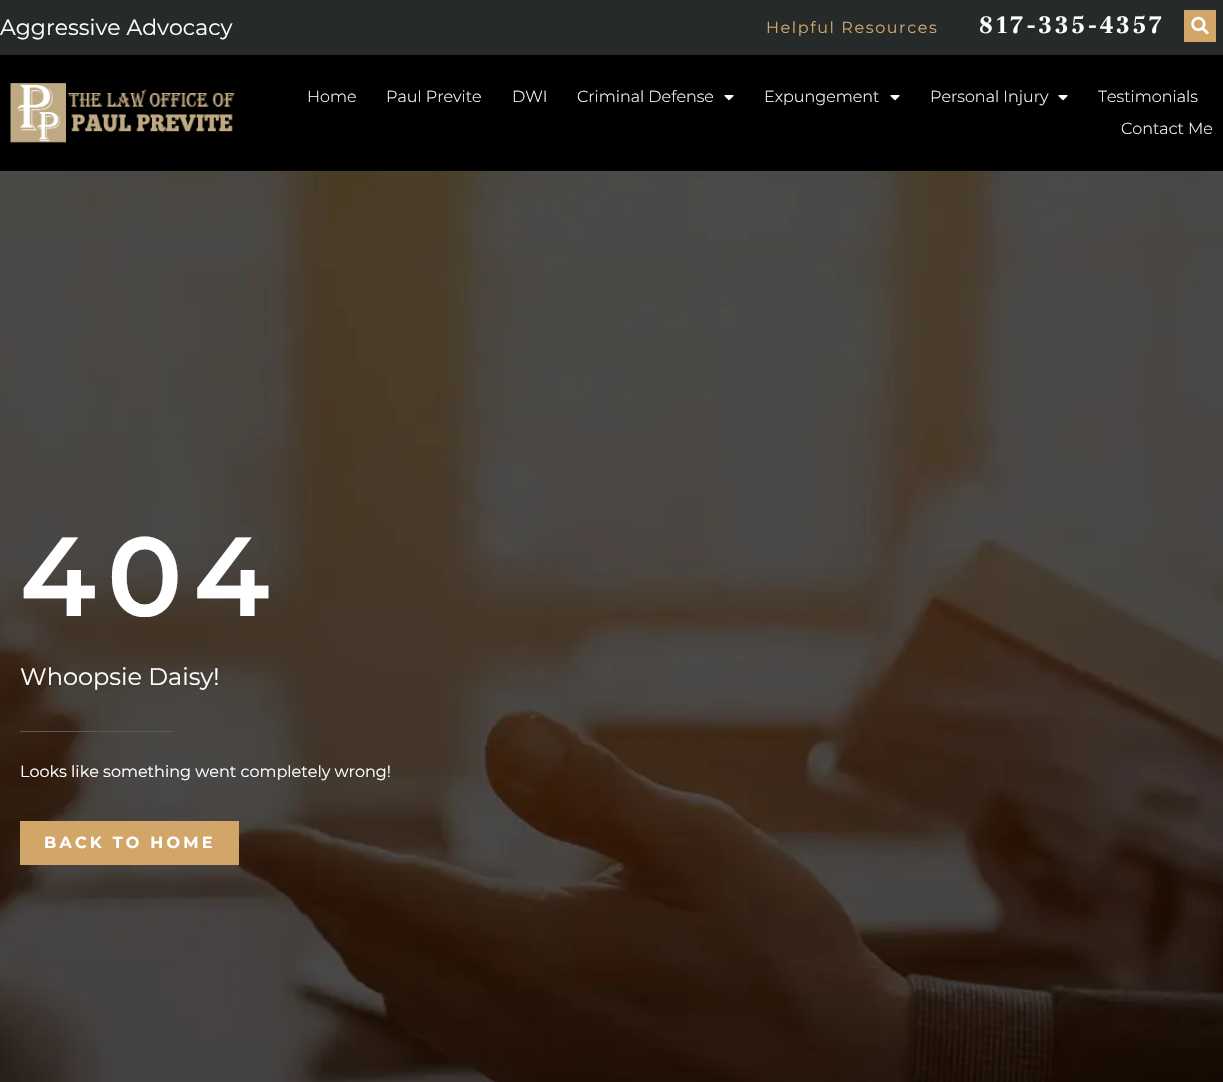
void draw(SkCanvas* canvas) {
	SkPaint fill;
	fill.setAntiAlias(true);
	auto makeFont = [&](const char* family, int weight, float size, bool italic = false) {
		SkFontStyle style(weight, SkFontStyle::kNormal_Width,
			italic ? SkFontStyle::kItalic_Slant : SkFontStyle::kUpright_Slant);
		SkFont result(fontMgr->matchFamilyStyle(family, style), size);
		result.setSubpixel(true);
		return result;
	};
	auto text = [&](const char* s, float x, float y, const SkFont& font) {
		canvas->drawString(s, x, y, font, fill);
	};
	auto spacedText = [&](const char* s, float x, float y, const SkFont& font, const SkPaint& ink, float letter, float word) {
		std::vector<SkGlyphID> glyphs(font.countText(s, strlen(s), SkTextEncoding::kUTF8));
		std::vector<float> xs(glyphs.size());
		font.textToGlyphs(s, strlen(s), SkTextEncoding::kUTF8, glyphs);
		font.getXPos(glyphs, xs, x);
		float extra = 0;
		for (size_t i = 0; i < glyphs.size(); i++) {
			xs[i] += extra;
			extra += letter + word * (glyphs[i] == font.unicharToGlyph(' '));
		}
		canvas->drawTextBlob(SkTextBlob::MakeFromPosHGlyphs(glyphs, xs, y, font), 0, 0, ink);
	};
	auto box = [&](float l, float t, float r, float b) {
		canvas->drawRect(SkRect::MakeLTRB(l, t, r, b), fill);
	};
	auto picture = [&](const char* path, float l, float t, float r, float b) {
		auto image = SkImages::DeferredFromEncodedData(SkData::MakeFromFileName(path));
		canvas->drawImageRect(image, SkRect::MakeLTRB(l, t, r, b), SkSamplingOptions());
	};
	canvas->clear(0xFF000000);
	fill.setColor(0xFF262A2B);
	box(0, 0, 1223, 55);
	fill.setColor(0xFFD2A569);
	box(1184, 10, 1216, 42);
	picture("image0.png", 1191, 16, 1209, 35);
	picture("image1.png", 10, 83, 235, 143);
	picture("image2.png", 724, 95, 734, 101);
	picture("image2.png", 890, 95, 900, 101);
	picture("image2.png", 1058, 95, 1068, 101);
	picture("image3.png", 0, 171, 1223, 1082);
	fill.setColor(0xFF595959);
	box(20, 731, 174, 732);
	fill.setColor(0xFFD2A569);
	box(20, 821, 239, 865);
	auto font1 = makeFont("Montserrat", 400, 22);
	fill.setColor(0xFFFFFFFF);
	text("Aggressive Advocacy", 0, 35, font1);
	auto font2 = makeFont("Montserrat", 400, 16);
	fill.setColor(0xFFD2A569);
	spacedText("Helpful Resources", 766, 33, font2, fill, 1.6f, 0);
	auto font3 = makeFont("Frank Ruhl Libre", 700, 25);
	fill.setColor(0xFFFFFFFF);
	spacedText("817-335-4357", 979, 33, font3, fill, 2.4f, 0);
	auto font4 = makeFont("Montserrat", 300, 16);
	text("Home", 307, 102, font4);
	text("Paul Previte", 386, 102, font4);
	text("DWI", 512, 102, font4);
	text("Criminal Defense", 577, 102, font4);
	text("Expungement", 764, 102, font4);
	text("Personal Injury", 930, 102, font4);
	text("Testimonials", 1098, 102, font4);
	text("Contact Me", 1121, 134, font4);
	auto font5 = makeFont("Montserrat", 600, 112);
	spacedText("404", 20, 616, font5, fill, 11, 0);
	auto font6 = makeFont("Montserrat", 400, 24);
	text("Whoopsie Daisy!", 20, 685, font6);
	text("Looks like something went completely wrong!", 20, 777, font2);
	auto font7 = makeFont("Montserrat", 700, 16);
	spacedText("BACK TO HOME", 44, 848, font7, fill, 3.25f, 0);
}
